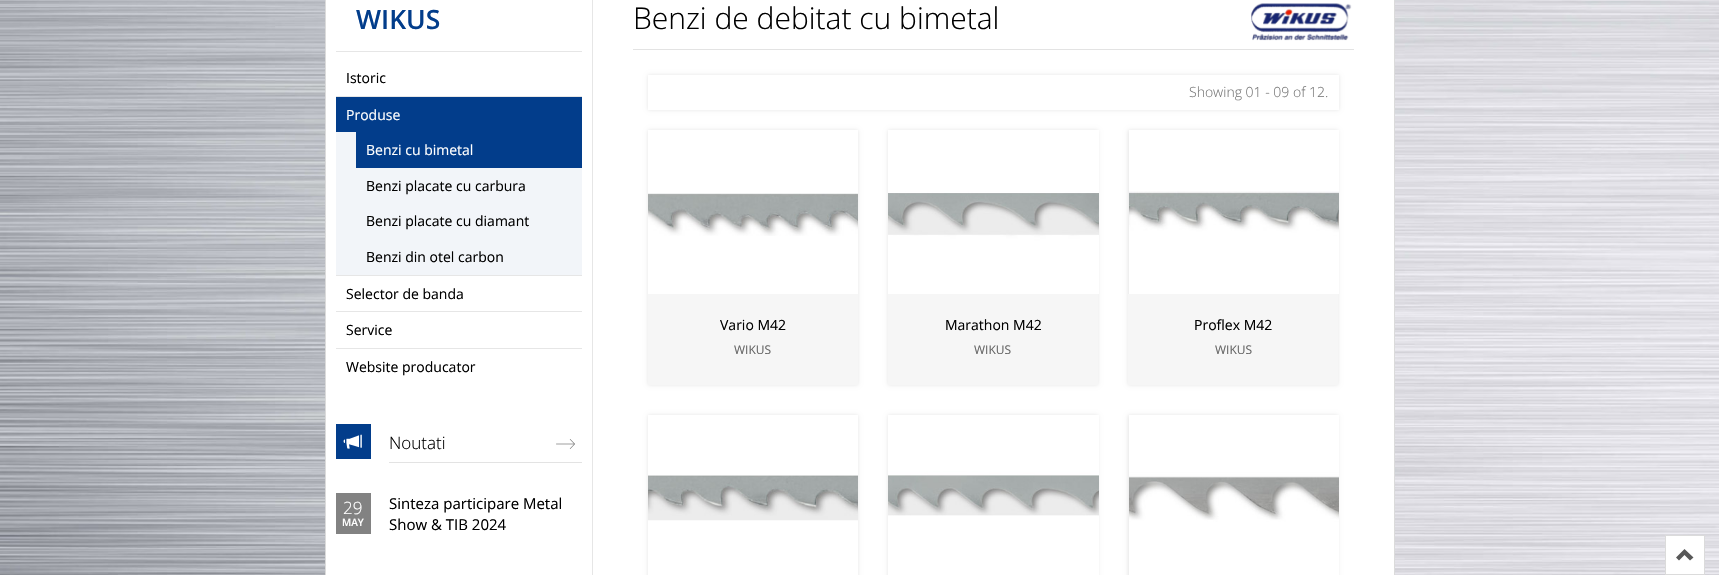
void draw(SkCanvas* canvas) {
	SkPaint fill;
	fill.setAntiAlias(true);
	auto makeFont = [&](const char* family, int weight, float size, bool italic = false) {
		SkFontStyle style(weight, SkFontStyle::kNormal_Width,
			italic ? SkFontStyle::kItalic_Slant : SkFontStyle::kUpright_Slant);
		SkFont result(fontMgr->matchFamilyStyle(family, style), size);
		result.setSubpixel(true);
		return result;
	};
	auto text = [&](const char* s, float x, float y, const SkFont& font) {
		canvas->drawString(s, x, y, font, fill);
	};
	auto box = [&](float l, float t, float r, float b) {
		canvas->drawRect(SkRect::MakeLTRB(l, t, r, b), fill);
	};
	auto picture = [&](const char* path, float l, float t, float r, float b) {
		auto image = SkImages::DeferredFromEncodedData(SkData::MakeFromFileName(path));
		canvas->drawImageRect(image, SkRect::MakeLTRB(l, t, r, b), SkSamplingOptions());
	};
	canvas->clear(0xFFFFFFFF);
	picture("image0.png", 0, 0, 1719, 575);
	fill.setColor(0xFFFFFFFF);
	canvas->drawRect(SkRect::MakeLTRB(325.5f, -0.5f, 1394.5f, 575.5f), fill);
	fill.setStyle(SkPaint::kStroke_Style);
	fill.setStrokeWidth(1);
	fill.setColor(0xFFDBDBDB);
	canvas->drawRect(SkRect::MakeLTRB(325.5f, -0.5f, 1394.5f, 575.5f), fill);
	fill.setStyle(SkPaint::kFill_Style);
	fill.setColor(0xFFE6E6E6);
	box(592, 0, 593, 575);
	box(336, 51, 582, 52);
	box(336, 96, 582, 97);
	box(336, 275, 582, 276);
	fill.setColor(0xFF023D8B);
	box(336, 97, 582, 132);
	fill.setColor(0xFFF2F5F9);
	box(336, 132, 582, 275);
	fill.setColor(0xFF023D8B);
	box(356, 132, 582, 168);
	fill.setColor(0xFFE6E6E6);
	box(336, 311, 582, 312);
	box(336, 348, 582, 349);
	fill.setColor(0xFF023D8B);
	box(336, 424, 371, 459);
	picture("image1.png", 343, 434, 362, 449);
	fill.setColor(0xFFE3E3E3);
	box(389, 462, 582, 463);
	picture("image2.png", 556, 439, 575, 449);
	fill.setColor(0xFF828282);
	box(336, 493, 371, 534);
	fill.setColor(0xFFE3E3E3);
	box(633, 49, 1354, 50);
	picture("image3.png", 1251, 3, 1352, 41);
	canvas->save();
	canvas->clipPath(SkPathBuilder(SkPathFillType::kEvenOdd).moveTo(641, 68).lineTo(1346, 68).lineTo(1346, 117).lineTo(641, 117).close().moveTo(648, 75).lineTo(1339, 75).lineTo(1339, 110).lineTo(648, 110).close().detach(), true);
	fill.setColor(0x1A000000);
	fill.setMaskFilter(SkMaskFilter::MakeBlur(kNormal_SkBlurStyle, 2));
	canvas->drawRect(SkRect::MakeLTRB(648, 75, 1339, 110), fill);
	fill.setMaskFilter(nullptr);
	canvas->restore();
	canvas->save();
	canvas->clipPath(SkPathBuilder(SkPathFillType::kEvenOdd).moveTo(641, 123).lineTo(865, 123).lineTo(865, 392).lineTo(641, 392).close().moveTo(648, 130).lineTo(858, 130).lineTo(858, 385).lineTo(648, 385).close().detach(), true);
	fill.setMaskFilter(SkMaskFilter::MakeBlur(kNormal_SkBlurStyle, 2));
	canvas->drawRect(SkRect::MakeLTRB(648, 130, 858, 385), fill);
	fill.setMaskFilter(nullptr);
	canvas->restore();
	picture("image4.png", 648, 193, 858, 236);
	fill.setColor(0xFFF6F6F6);
	box(648, 294, 858, 385);
	fill.setColor(0x1A000000);
	fill.setMaskFilter(SkMaskFilter::MakeBlur(kNormal_SkBlurStyle, 2));
	canvas->drawRect(SkRect::MakeLTRB(888, 130, 1098, 385), fill);
	fill.setMaskFilter(nullptr);
	picture("image5.png", 888, 130, 1099, 294);
	fill.setColor(0xFFF6F6F6);
	box(888, 294, 1098, 385);
	fill.setColor(0x1A000000);
	fill.setMaskFilter(SkMaskFilter::MakeBlur(kNormal_SkBlurStyle, 2));
	canvas->drawRect(SkRect::MakeLTRB(1128, 130, 1338, 385), fill);
	fill.setMaskFilter(nullptr);
	picture("image6.png", 1129, 130, 1339, 294);
	fill.setColor(0xFFF6F6F6);
	box(1128, 294, 1338, 385);
	canvas->save();
	canvas->clipPath(SkPathBuilder(SkPathFillType::kEvenOdd).moveTo(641, 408).lineTo(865, 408).lineTo(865, 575).lineTo(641, 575).close().moveTo(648, 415).lineTo(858, 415).lineTo(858, 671).lineTo(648, 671).close().detach(), true);
	fill.setColor(0x1A000000);
	fill.setMaskFilter(SkMaskFilter::MakeBlur(kNormal_SkBlurStyle, 2));
	canvas->drawRect(SkRect::MakeLTRB(648, 415, 858, 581), fill);
	fill.setMaskFilter(nullptr);
	canvas->restore();
	picture("image7.png", 648, 475, 858, 521);
	fill.setMaskFilter(SkMaskFilter::MakeBlur(kNormal_SkBlurStyle, 2));
	canvas->drawRect(SkRect::MakeLTRB(888, 415, 1098, 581), fill);
	fill.setMaskFilter(nullptr);
	picture("image8.png", 888, 415, 1099, 575);
	fill.setMaskFilter(SkMaskFilter::MakeBlur(kNormal_SkBlurStyle, 2));
	canvas->drawRect(SkRect::MakeLTRB(1128, 415, 1338, 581), fill);
	fill.setMaskFilter(nullptr);
	picture("image9.png", 1129, 415, 1339, 575);
	fill.setColor(0xFFFFFFFF);
	canvas->drawRect(SkRect::MakeLTRB(1665.5f, 535.5f, 1704.5f, 574.5f), fill);
	fill.setStyle(SkPaint::kStroke_Style);
	fill.setColor(0xFFDBDBDB);
	canvas->drawRect(SkRect::MakeLTRB(1665.5f, 535.5f, 1704.5f, 574.5f), fill);
	fill.setStyle(SkPaint::kFill_Style);
	fill.setColor(0xFF585858);
	canvas->drawPath(SkPathBuilder().moveTo(1693.5f, 557.5f).lineTo(1690, 560.5f).lineTo(1684.5f, 555).lineTo(1679, 560.5f).lineTo(1676, 557.5f).lineTo(1684.5f, 549).close().detach(), fill);
	auto font1 = makeFont("Open Sans", 600, 26.5f);
	fill.setColor(0xFF023D8B);
	text("WIKUS", 356, 29, font1);
	auto font2 = makeFont("Open Sans", 400, 14);
	fill.setColor(0xFF000000);
	text("Istoric", 346, 83, font2);
	fill.setColor(0xFFFFFFFF);
	text("Produse", 346, 120, font2);
	text("Benzi cu bimetal", 366, 155, font2);
	fill.setColor(0xFF000000);
	text("Benzi placate cu carbura", 366, 191, font2);
	text("Benzi placate cu diamant", 366, 226, font2);
	text("Benzi din otel carbon", 366, 262, font2);
	text("Selector de banda", 346, 299, font2);
	text("Service", 346, 335, font2);
	text("Website producator", 346, 372, font2);
	auto font3 = makeFont("Open Sans", 300, 17);
	text("Noutati", 389, 449, font3);
	fill.setColor(0xFFFFFFFF);
	text("29", 343, 514, font3);
	auto font4 = makeFont("Open Sans", 600, 10);
	text("MAY", 342, 526, font4);
	auto font5 = makeFont("Open Sans", 400, 15);
	fill.setColor(0xFF000000);
	text("Sinteza participare Metal", 389, 509, font5);
	text("Show & TIB 2024", 389, 530, font5);
	auto font6 = makeFont("Open Sans", 300, 30);
	text("Benzi de debitat cu bimetal", 633, 29, font6);
	auto font7 = makeFont("Open Sans", 300, 14);
	fill.setColor(0xFF777777);
	text("Showing 01 - 09 of 12.", 1189, 97, font7);
	fill.setColor(0xFF000000);
	text("Vario M42", 720, 330, font2);
	auto font8 = makeFont("Open Sans", 400, 12);
	fill.setColor(0xFF666666);
	text("WIKUS", 734, 354, font8);
	fill.setColor(0xFF000000);
	text("Marathon M42", 945, 330, font2);
	fill.setColor(0xFF666666);
	text("WIKUS", 974, 354, font8);
	fill.setColor(0xFF000000);
	text("Proflex M42", 1194, 330, font2);
	fill.setColor(0xFF666666);
	text("WIKUS", 1215, 354, font8);
}
